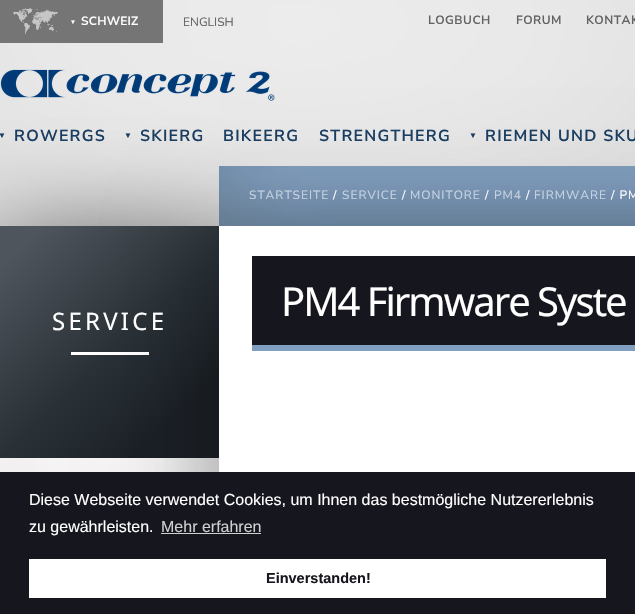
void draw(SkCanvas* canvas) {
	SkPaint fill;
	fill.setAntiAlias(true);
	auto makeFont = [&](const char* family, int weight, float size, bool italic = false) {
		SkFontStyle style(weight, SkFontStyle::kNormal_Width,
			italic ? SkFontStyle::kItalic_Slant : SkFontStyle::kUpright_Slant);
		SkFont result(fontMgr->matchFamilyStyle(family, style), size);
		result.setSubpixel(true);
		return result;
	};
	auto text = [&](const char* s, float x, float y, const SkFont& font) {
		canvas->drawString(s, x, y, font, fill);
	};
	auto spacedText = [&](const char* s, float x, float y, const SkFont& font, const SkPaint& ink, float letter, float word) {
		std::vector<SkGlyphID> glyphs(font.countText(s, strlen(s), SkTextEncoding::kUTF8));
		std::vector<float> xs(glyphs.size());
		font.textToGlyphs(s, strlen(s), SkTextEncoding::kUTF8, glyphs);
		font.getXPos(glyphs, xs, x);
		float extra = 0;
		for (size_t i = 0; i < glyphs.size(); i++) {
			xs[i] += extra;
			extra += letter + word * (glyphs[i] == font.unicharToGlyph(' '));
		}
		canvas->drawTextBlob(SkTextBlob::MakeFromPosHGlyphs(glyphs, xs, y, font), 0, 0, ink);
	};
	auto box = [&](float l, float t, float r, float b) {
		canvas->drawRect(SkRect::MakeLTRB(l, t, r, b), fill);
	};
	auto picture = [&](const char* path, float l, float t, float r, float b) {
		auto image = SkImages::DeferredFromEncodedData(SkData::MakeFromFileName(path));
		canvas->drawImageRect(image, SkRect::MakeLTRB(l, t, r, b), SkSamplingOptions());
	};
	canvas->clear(0xFFFFFFFF);
	picture("image0.png", 0, 0, 635, 226);
	fill.setColor(0xFF757575);
	box(0, 0, 163, 43);
	picture("image1.png", 13, 8, 58, 34);
	picture("image3.png", 219, 166, 635, 226);
	fill.setColor(0xFF666666);
	fill.setMaskFilter(SkMaskFilter::MakeBlur(kNormal_SkBlurStyle, 50));
	canvas->drawRect(SkRect::MakeLTRB(0, 236, 219, 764), fill);
	fill.setMaskFilter(nullptr);
	picture("image4.png", 0, 458, 219, 472);
	{
		const SkColor colors[] = {0xFF1B2026, 0xFF293137, 0xFF4E555C};
		const float stops[] = {0.19f, 0.47f, 0.91f};
		const SkPoint ends[] = {{219, 458}, {0, 226}};
		fill.setShader(SkGradientShader::MakeLinear(ends, colors, stops, 3, SkTileMode::kClamp));
		fill.setAlpha(255);
	}
	box(0, 226, 219, 458);
	fill.setShader(nullptr);
	fill.setColor(0xFFFFFFFF);
	box(71, 352, 149, 355);
	fill.setColor(0x4D000000);
	fill.setMaskFilter(SkMaskFilter::MakeBlur(kNormal_SkBlurStyle, 50));
	canvas->drawRect(SkRect::MakeLTRB(219, 236, 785, 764), fill);
	fill.setMaskFilter(nullptr);
	picture("image2.png", 0, 69, 275, 101);
	fill.setColor(0xFFFFFFFF);
	box(219, 226, 635, 472);
	fill.setColor(0xFF16161E);
	box(252, 256, 635, 345);
	fill.setColor(0xFF809EBF);
	box(252, 345, 635, 351);
	fill.setColor(0xFF16161E);
	box(0, 472, 635, 614);
	fill.setColor(0xFFD0D0D2);
	box(161, 533, 261, 534);
	fill.setColor(0xFFFFFFFF);
	box(29, 559, 606, 598);
	auto font1 = makeFont("Liberation Serif", 700, 6);
	spacedText("▼", 70, 24, font1, fill, 0.25f, 0);
	auto font2 = makeFont("Nunito Sans", 600, 12);
	spacedText("SCHWEIZ", 81, 25, font2, fill, 0.25f, 0);
	auto font3 = makeFont("Nunito Sans", 400, 12);
	fill.setColor(0xFF636363);
	text("ENGLISH", 183, 26, font3);
	spacedText("LOGBUCH", 428, 24, font2, fill, 0.5f, 0);
	spacedText("FORUM", 516, 24, font2, fill, 0.5f, 0);
	spacedText("KONTAK", 586, 24, font2, fill, 0.5f, 0);
	auto font4 = makeFont("Liberation Serif", 700, 8);
	fill.setColor(0xFF1A3E62);
	spacedText("▼", -2, 138, font4, fill, 1.25f, 0);
	auto font5 = makeFont("Nunito Sans", 600, 16);
	spacedText("ROWERGS", 14, 141, font5, fill, 1.25f, 0);
	spacedText("▼", 124, 138, font4, fill, 1.25f, 0);
	spacedText("SKIERG", 140, 141, font5, fill, 1.25f, 0);
	spacedText("BIKEERG", 223, 141, font5, fill, 1.25f, 0);
	spacedText("STRENGTHERG", 319, 141, font5, fill, 1.25f, 0);
	spacedText("▼", 469, 138, font4, fill, 1.25f, 0);
	spacedText("RIEMEN UND SKU", 485, 141, font5, fill, 1.25f, 0);
	fill.setColor(0xFFC7D4E2);
	spacedText("STARTSEITE", 249, 199, font3, fill, 1, 0);
	fill.setColor(0xFFFFFFFF);
	spacedText("/", 333, 199, font3, fill, 1, 0);
	fill.setColor(0xFFC7D4E2);
	spacedText("SERVICE", 342, 199, font3, fill, 1, 0);
	fill.setColor(0xFFFFFFFF);
	spacedText("/", 402, 199, font3, fill, 1, 0);
	fill.setColor(0xFFC7D4E2);
	spacedText("MONITORE", 410, 199, font3, fill, 1, 0);
	fill.setColor(0xFFFFFFFF);
	spacedText("/", 485, 199, font3, fill, 1, 0);
	fill.setColor(0xFFC7D4E2);
	spacedText("PM4", 494, 199, font3, fill, 1, 0);
	fill.setColor(0xFFFFFFFF);
	spacedText("/", 526, 199, font3, fill, 1, 0);
	fill.setColor(0xFFC7D4E2);
	spacedText("FIRMWARE", 534, 199, font3, fill, 1, 0);
	fill.setColor(0xFFFFFFFF);
	spacedText("/ PM", 611, 199, font3, fill, 1, 0);
	auto font6 = makeFont("Noto Sans", 400, 24);
	spacedText("SERVICE", 52, 330, font6, fill, 3.25f, 0);
	auto font7 = makeFont("Noto Sans", 400, 40);
	spacedText("PM4 Firmware Syste", 281, 316, font7, fill, -2, 0);
	auto font8 = makeFont("Liberation Sans", 400, 16);
	text("Diese Webseite verwendet Cookies, um Ihnen das bestmögliche Nutzererlebnis", 29, 505, font8);
	text("zu gewährleisten.", 29, 532, font8);
	fill.setColor(0xFFD0D0D2);
	text("Mehr erfahren", 161, 532, font8);
	auto font9 = makeFont("Liberation Sans", 700, 14.5f);
	fill.setColor(0xFF16161E);
	text("Einverstanden!", 266, 583, font9);
}
